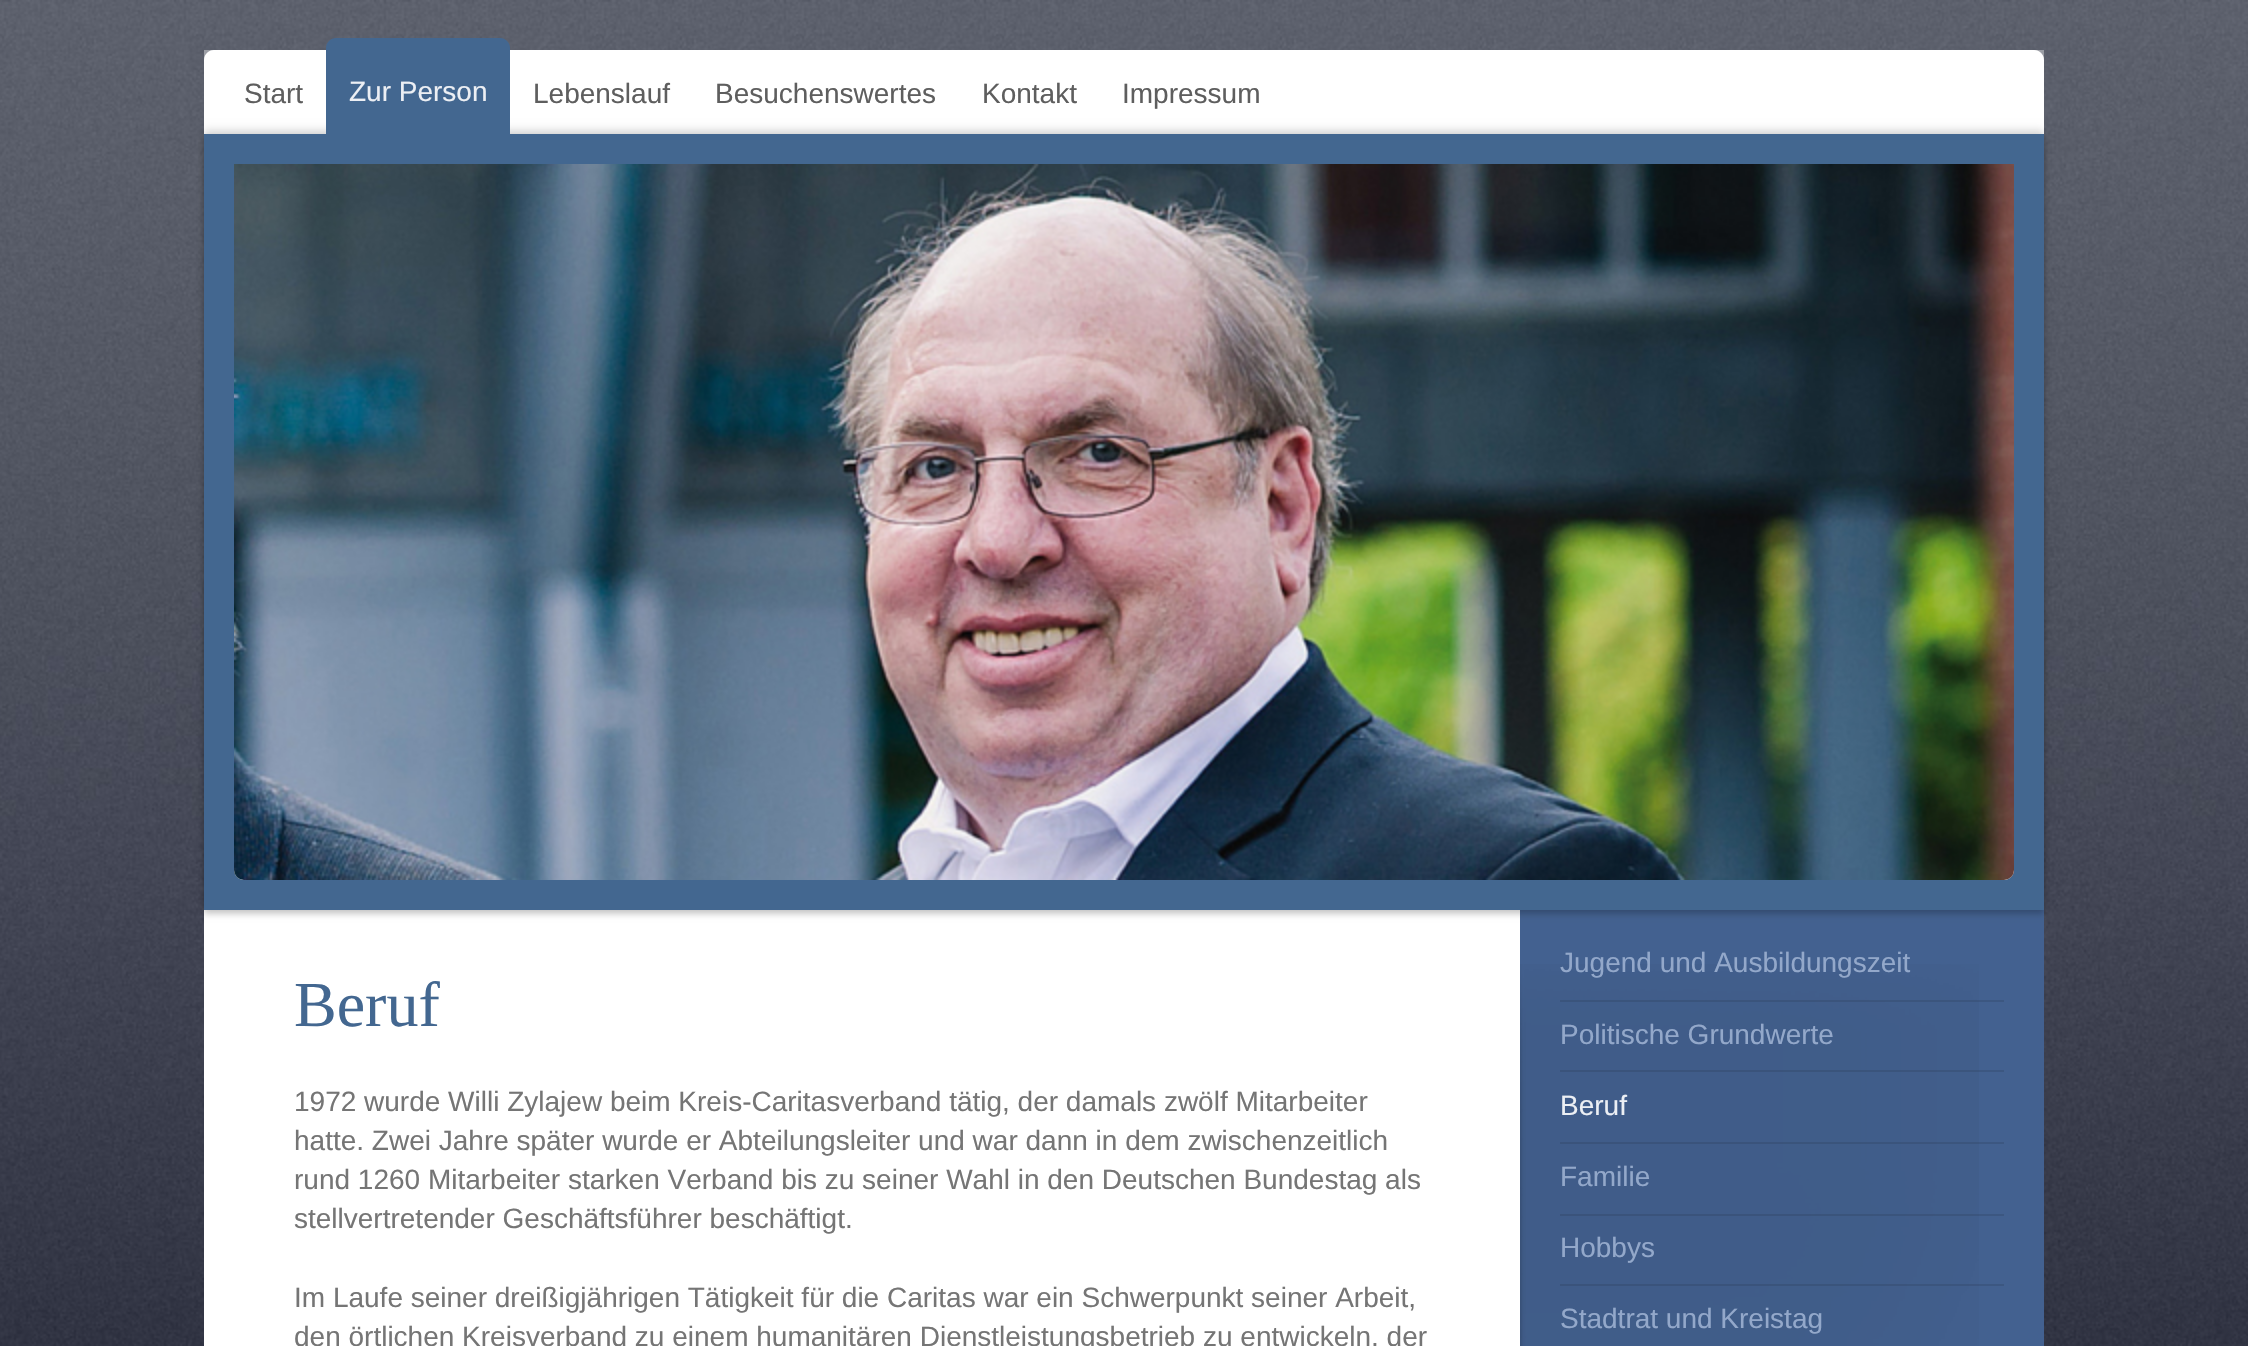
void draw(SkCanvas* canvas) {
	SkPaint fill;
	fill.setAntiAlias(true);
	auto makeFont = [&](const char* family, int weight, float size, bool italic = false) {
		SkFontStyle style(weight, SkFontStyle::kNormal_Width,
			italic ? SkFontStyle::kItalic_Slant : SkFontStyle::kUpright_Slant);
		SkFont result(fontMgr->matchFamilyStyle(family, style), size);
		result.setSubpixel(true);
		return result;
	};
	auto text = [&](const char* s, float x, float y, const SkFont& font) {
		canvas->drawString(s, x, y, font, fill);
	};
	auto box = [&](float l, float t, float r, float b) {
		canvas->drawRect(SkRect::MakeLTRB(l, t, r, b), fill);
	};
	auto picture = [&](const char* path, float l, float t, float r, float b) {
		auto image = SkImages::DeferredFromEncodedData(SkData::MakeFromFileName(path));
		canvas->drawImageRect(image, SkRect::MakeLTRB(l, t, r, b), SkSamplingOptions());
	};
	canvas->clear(0xFFFFFFFF);
	picture("image0.png", 0, 0, 2248, 1346);
	fill.setColor(0xFFFFFFFF);
	canvas->drawPath(SkPathBuilder().moveTo(214, 50).lineTo(2034, 50).cubicTo(2039.5f, 50, 2044, 54.5f, 2044, 60).lineTo(2044, 136).lineTo(204, 136).lineTo(204, 60).cubicTo(204, 54.5f, 208.5f, 50, 214, 50).close().detach(), fill);
	fill.setColor(0x4DFFFFFF);
	canvas->drawPath(SkPathBuilder().moveTo(214, 52).lineTo(2034, 52).cubicTo(2040, 52, 2044, 56, 2044, 62).cubicTo(2044, 56, 2041, 50, 2034, 50).lineTo(214, 50).cubicTo(207, 50, 204, 56, 204, 62).cubicTo(204, 56, 208, 52, 214, 52).close().detach(), fill);
	{
		const SkColor colors[] = {0x66FFFFFF, 0x00FFFFFF};
		const float stops[] = {0, 1};
		const SkPoint ends[] = {{182, 50}, {182, 136}};
		fill.setShader(SkGradientShader::MakeLinear(ends, colors, stops, 2, SkTileMode::kClamp));
		fill.setAlpha(255);
	}
	box(204, 50, 2044, 60);
	fill.setShader(nullptr);
	fill.setColor(0xFFFFFFFF);
	box(204, 910, 1520, 1346);
	fill.setColor(0xFF436190);
	box(1520, 910, 2044, 1346);
	fill.setColor(0x26000000);
	fill.setMaskFilter(SkMaskFilter::MakeBlur(kNormal_SkBlurStyle, 4));
	canvas->drawRect(SkRect::MakeLTRB(204, 130, 2044, 906), fill);
	fill.setMaskFilter(nullptr);
	fill.setColor(0x33000000);
	fill.setMaskFilter(SkMaskFilter::MakeBlur(kNormal_SkBlurStyle, 3));
	canvas->drawRect(SkRect::MakeLTRB(204, 138, 2044, 914), fill);
	fill.setMaskFilter(nullptr);
	fill.setColor(0xFF436790);
	box(204, 134, 2044, 910);
	canvas->drawPath(SkPathBuilder().moveTo(336, 38).lineTo(500, 38).cubicTo(505.5f, 38, 510, 42.5f, 510, 48).lineTo(510, 136).lineTo(326, 136).lineTo(326, 48).cubicTo(326, 42.5f, 330.5f, 38, 336, 38).close().detach(), fill);
	picture("image2.png", 234, 870, 2014, 880);
	fill.setColor(0xFFEEEEEE);
	canvas->drawPath(SkPathBuilder().moveTo(234, 164).lineTo(2014, 164).lineTo(2014, 870).cubicTo(2014, 875.5f, 2009.5f, 880, 2004, 880).lineTo(244, 880).cubicTo(238.5f, 880, 234, 875.5f, 234, 870).close().detach(), fill);
	picture("image1.png", 234, 164, 2014, 880);
	picture("image3.png", 1520, 964, 1979, 1346);
	fill.setColor(0x1A000000);
	box(1560, 1000, 2004, 1002);
	box(1560, 1070, 2004, 1072);
	box(1560, 1142, 2004, 1144);
	box(1560, 1214, 2004, 1216);
	box(1560, 1284, 2004, 1286);
	auto font1 = makeFont("Liberation Sans", 400, 28);
	fill.setColor(0xFF5E5E5E);
	text("Start", 244, 103, font1);
	fill.setColor(0xFFECEFF4);
	text("Zur Person", 349, 101, font1);
	fill.setColor(0xFF5E5E5E);
	text("Lebenslauf", 533, 103, font1);
	text("Besuchenswertes", 715, 103, font1);
	text("Kontakt", 982, 103, font1);
	text("Impressum", 1122, 103, font1);
	auto font2 = makeFont("Liberation Serif", 400, 64);
	fill.setColor(0xFF436790);
	text("Beruf", 294, 1026, font2);
	fill.setColor(0xFF757575);
	text("1972 wurde Willi Zylajew beim Kreis-Caritasverband tätig, der damals zwölf Mitarbeiter", 294, 1111, font1);
	text("hatte. Zwei Jahre später wurde er Abteilungsleiter und war dann in dem zwischenzeitlich", 294, 1150, font1);
	text("rund 1260 Mitarbeiter starken Verband bis zu seiner Wahl in den Deutschen Bundestag als", 294, 1189, font1);
	text("stellvertretender Geschäftsführer beschäftigt.", 294, 1228, font1);
	text("Im Laufe seiner dreißigjährigen Tätigkeit für die Caritas war ein Schwerpunkt seiner Arbeit,", 294, 1307, font1);
	text("den örtlichen Kreisverband zu einem humanitären Dienstleistungsbetrieb zu entwickeln, der", 294, 1346, font1);
	fill.setColor(0xFF93A8CA);
	text("Jugend und Ausbildungszeit", 1560, 972, font1);
	text("Politische Grundwerte", 1560, 1044, font1);
	fill.setColor(0xFFECEFF4);
	text("Beruf", 1560, 1115, font1);
	fill.setColor(0xFF93A8CA);
	text("Familie", 1560, 1186, font1);
	text("Hobbys", 1560, 1257, font1);
	text("Stadtrat und Kreistag", 1560, 1328, font1);
}
